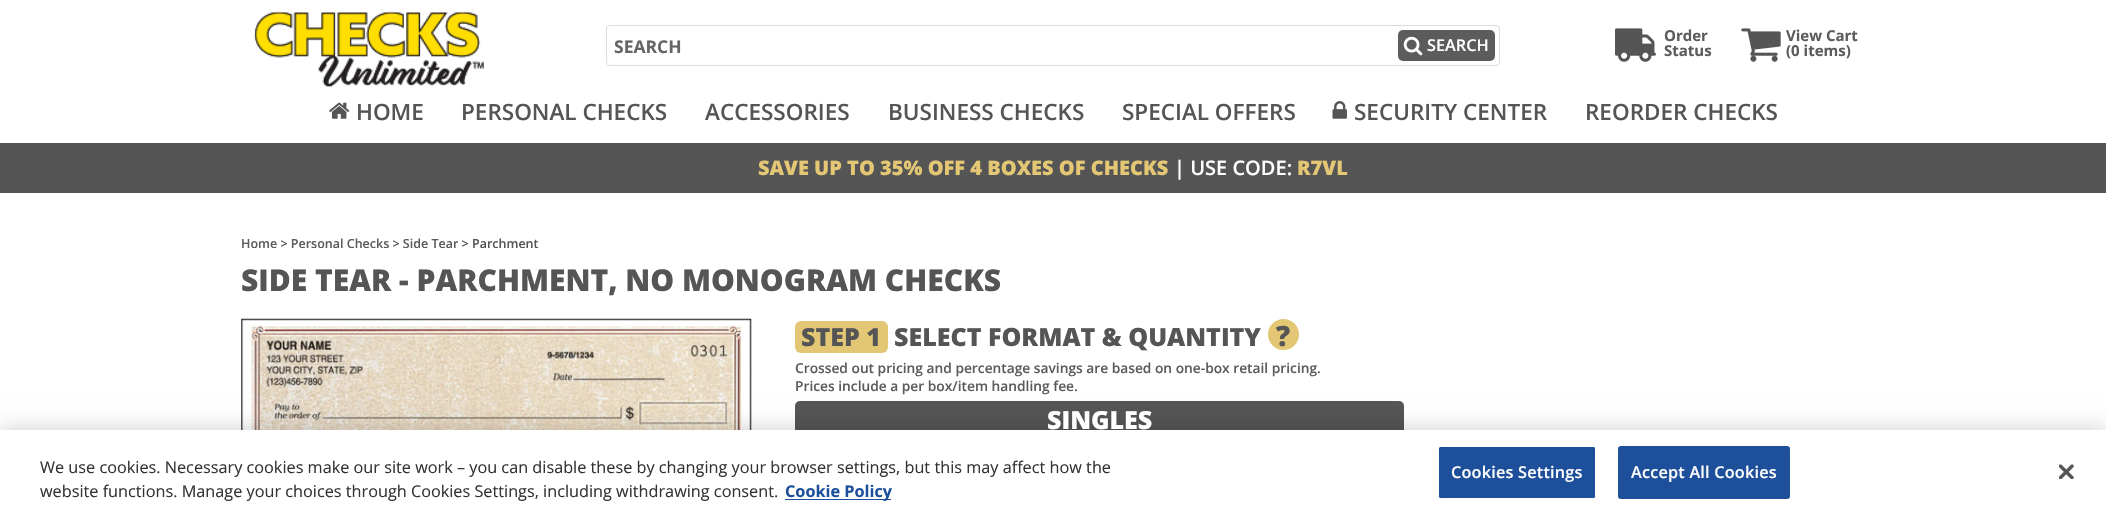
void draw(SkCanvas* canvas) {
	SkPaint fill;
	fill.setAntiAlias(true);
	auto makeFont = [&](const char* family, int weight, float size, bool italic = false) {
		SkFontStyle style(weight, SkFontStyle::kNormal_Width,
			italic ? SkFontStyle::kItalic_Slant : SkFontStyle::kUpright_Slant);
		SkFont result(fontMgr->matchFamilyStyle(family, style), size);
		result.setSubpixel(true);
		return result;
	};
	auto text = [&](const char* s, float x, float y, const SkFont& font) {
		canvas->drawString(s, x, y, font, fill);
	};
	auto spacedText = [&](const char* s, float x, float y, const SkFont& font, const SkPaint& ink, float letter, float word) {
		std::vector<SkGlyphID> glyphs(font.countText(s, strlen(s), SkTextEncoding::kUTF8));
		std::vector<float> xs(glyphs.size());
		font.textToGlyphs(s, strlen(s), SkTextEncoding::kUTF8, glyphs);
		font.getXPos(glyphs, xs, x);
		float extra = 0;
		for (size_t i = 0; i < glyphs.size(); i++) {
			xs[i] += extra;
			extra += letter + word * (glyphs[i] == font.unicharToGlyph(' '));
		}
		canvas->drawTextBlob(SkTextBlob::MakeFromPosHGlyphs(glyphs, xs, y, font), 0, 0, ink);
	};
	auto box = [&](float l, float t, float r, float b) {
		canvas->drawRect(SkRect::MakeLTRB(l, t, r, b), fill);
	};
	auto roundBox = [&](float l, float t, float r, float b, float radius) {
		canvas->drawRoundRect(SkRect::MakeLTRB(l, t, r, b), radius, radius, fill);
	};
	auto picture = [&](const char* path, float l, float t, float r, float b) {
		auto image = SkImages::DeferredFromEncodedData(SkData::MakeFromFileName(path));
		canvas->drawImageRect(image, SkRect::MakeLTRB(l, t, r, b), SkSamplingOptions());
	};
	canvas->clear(0xFFFFFFFF);
	picture("image0.png", 254, 11, 484, 87);
	fill.setStyle(SkPaint::kStroke_Style);
	fill.setStrokeWidth(1);
	fill.setColor(0xFFDEDBD6);
	canvas->drawRoundRect(SkRect::MakeLTRB(606.5f, 25.5f, 1499.5f, 65.5f), 3.5f, 3.5f, fill);
	fill.setStyle(SkPaint::kFill_Style);
	fill.setColor(0xFF5C5C5C);
	roundBox(1398, 30, 1495, 61, 5);
	picture("image1.png", 1403, 36, 1423, 56);
	picture("image2.png", 1615, 28, 1656, 62);
	picture("image3.png", 1741, 28, 1781, 62);
	picture("image4.png", 329, 102, 350, 119);
	picture("image5.png", 1332, 101, 1347, 119);
	fill.setColor(0xFF555555);
	box(0, 143, 2106, 193);
	picture("image6.png", 241, 318, 752, 430);
	fill.setColor(0xFFE3C774);
	roundBox(795, 321, 888, 353, 6);
	canvas->drawCircle(1283.5f, 334.5f, 15.5f, fill);
	fill.setColor(0xFF555555);
	roundBox(795, 401, 1404, 439, 5);
	fill.setColor(0x33000000);
	fill.setMaskFilter(SkMaskFilter::MakeBlur(kNormal_SkBlurStyle, 11));
	canvas->drawRect(SkRect::MakeLTRB(0, 430, 2106, 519), fill);
	fill.setMaskFilter(nullptr);
	fill.setColor(0xFFFFFFFF);
	box(0, 430, 2106, 518);
	fill.setColor(0xFF1D4F9A);
	box(785, 499, 891, 500);
	canvas->drawRoundRect(SkRect::MakeLTRB(1438.5f, 446.5f, 1595.5f, 498.5f), 2, 2, fill);
	fill.setStyle(SkPaint::kStroke_Style);
	fill.setColor(0xFFFFFFFF);
	canvas->drawRoundRect(SkRect::MakeLTRB(1438.5f, 446.5f, 1595.5f, 498.5f), 2, 2, fill);
	fill.setStyle(SkPaint::kFill_Style);
	fill.setColor(0xFF1D4F9A);
	canvas->drawRoundRect(SkRect::MakeLTRB(1618.5f, 446.5f, 1789.5f, 498.5f), 2, 2, fill);
	fill.setStyle(SkPaint::kStroke_Style);
	canvas->drawRoundRect(SkRect::MakeLTRB(1618.5f, 446.5f, 1789.5f, 498.5f), 2, 2, fill);
	picture("image7.png", 2059, 464, 2074, 479);
	auto font1 = makeFont("Open Sans", 700, 17.5f);
	fill.setStyle(SkPaint::kFill_Style);
	fill.setColor(0xFF666666);
	text("SEARCH", 614, 53, font1);
	auto font2 = makeFont("Open Sans", 600, 16.25f);
	fill.setColor(0xFFFFFFFF);
	text("SEARCH", 1427, 51, font2);
	auto font3 = makeFont("Open Sans", 700, 15);
	fill.setColor(0xFF5C5C5C);
	text("Order", 1664, 41, font3);
	text("Status", 1664, 56, font3);
	text("View Cart", 1786, 41, font3);
	text("(0 items)", 1786, 56, font3);
	auto font4 = makeFont("Open Sans", 600, 22.5f);
	fill.setColor(0xFF555555);
	text("HOME", 356, 120, font4);
	text("PERSONAL CHECKS", 461, 120, font4);
	text("ACCESSORIES", 705, 120, font4);
	text("BUSINESS CHECKS", 888, 120, font4);
	text("SPECIAL OFFERS", 1122, 120, font4);
	text("SECURITY CENTER", 1354, 120, font4);
	text("REORDER CHECKS", 1585, 120, font4);
	auto font5 = makeFont("Open Sans", 800, 20);
	fill.setColor(0xFFE3C774);
	text("SAVE UP TO 35% OFF 4 BOXES OF CHECKS", 758, 175, font5);
	auto font6 = makeFont("Open Sans", 600, 20);
	fill.setColor(0xFFFFFFFF);
	text("| USE CODE:", 1174, 175, font6);
	fill.setColor(0xFFE3C774);
	text("R7VL", 1297, 175, font5);
	auto font7 = makeFont("Open Sans", 600, 12.5f);
	fill.setColor(0xFF5C5C5C);
	text("Home > Personal Checks > Side Tear >", 241, 248, font7);
	fill.setColor(0xFF555555);
	text("Parchment", 472, 248, font7);
	auto font8 = makeFont("Open Sans", 800, 30);
	text("SIDE TEAR - PARCHMENT, NO MONOGRAM CHECKS", 241, 291, font8);
	auto font9 = makeFont("Open Sans", 800, 25);
	text("STEP 1", 801, 346, font9);
	text("SELECT FORMAT & QUANTITY", 894, 346, font9);
	auto font10 = makeFont("Open Sans", 800, 28);
	text("?", 1276, 346, font10);
	auto font11 = makeFont("Open Sans", 600, 13.75f);
	fill.setColor(0xFF5C5C5C);
	text("Crossed out pricing and percentage savings are based on one-box retail pricing.", 795, 373, font11);
	text("Prices include a per box/item handling fee.", 795, 391, font11);
	fill.setColor(0xFFFFFFFF);
	text("SINGLES", 1047, 429, font9);
	auto font12 = makeFont("Open Sans", 400, 16.25f);
	fill.setColor(0xFF333333);
	text("We use cookies. Necessary cookies make our site work – you can disable these by changing your browser settings, but this may affect how the", 40, 473, font12);
	text("website functions. Manage your choices through Cookies Settings, including withdrawing consent.", 40, 497, font12);
	auto font13 = makeFont("Open Sans", 700, 16.25f);
	fill.setColor(0xFF1D4F9A);
	text("Cookie Policy", 785, 497, font13);
	fill.setColor(0xFFFFFFFF);
	spacedText("Cookies Settings", 1451, 478, font2, fill, 0.2f, 0);
	spacedText("Accept All Cookies", 1631, 478, font2, fill, 0.2f, 0);
}
